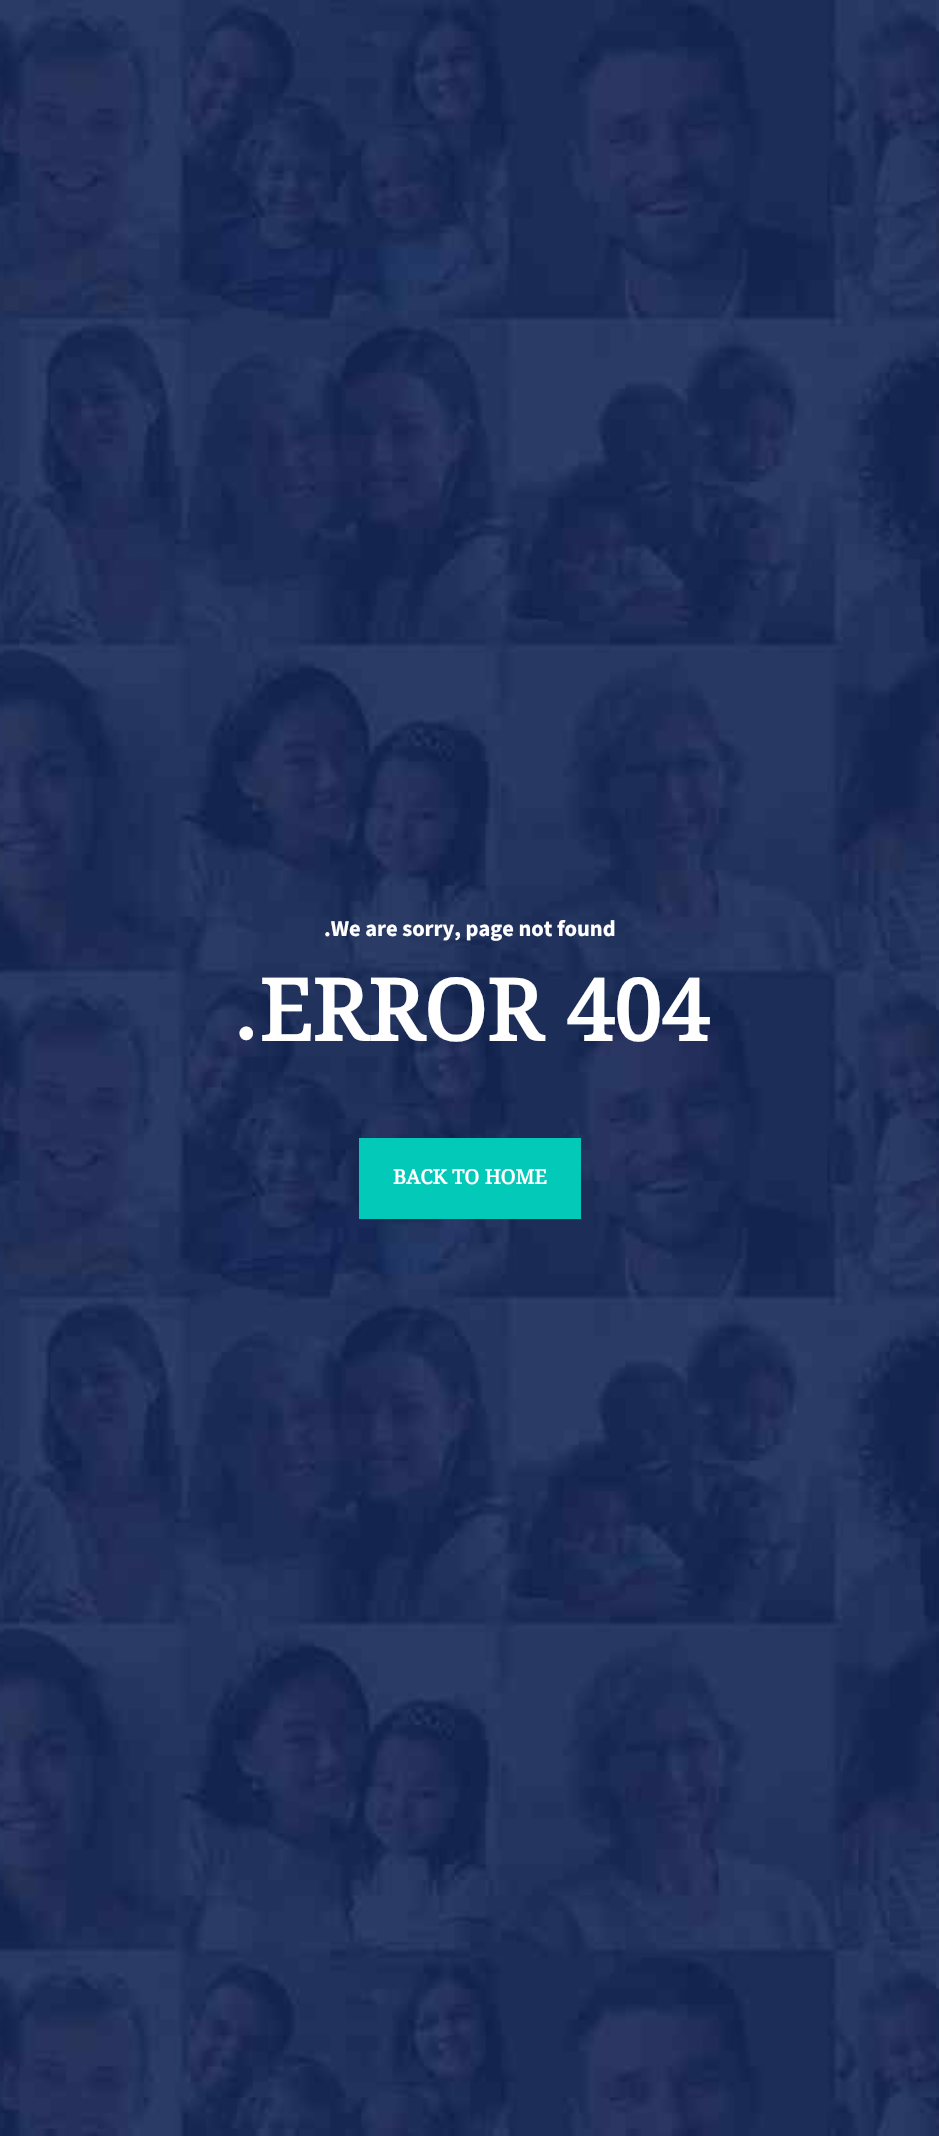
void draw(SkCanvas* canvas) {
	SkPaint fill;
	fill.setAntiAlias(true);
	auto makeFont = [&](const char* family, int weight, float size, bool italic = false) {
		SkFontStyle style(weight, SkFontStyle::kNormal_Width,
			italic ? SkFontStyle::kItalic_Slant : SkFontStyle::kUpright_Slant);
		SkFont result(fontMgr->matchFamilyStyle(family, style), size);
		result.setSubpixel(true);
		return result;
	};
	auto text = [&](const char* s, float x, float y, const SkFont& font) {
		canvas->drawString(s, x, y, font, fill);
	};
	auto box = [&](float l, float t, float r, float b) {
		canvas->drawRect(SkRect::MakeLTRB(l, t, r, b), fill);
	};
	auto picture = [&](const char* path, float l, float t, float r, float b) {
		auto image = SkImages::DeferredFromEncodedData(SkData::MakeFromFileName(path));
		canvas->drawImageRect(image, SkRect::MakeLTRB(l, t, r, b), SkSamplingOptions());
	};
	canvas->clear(0xFFFFFFFF);
	picture("image0.png", 0, 0, 939, 2136);
	fill.setColor(0xFF02C9B8);
	box(359, 1138, 581, 1219);
	auto font1 = makeFont("Source Sans Pro", 700, 22.5f);
	fill.setColor(0xFFFFFFFF);
	text(".We are sorry, page not found", 324, 936, font1);
	auto font2 = makeFont("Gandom", 700, 85);
	text(".ERROR 404", 231, 1041, font2);
	auto font3 = makeFont("Gandom", 700, 20);
	text("BACK TO HOME", 393, 1184, font3);
}
